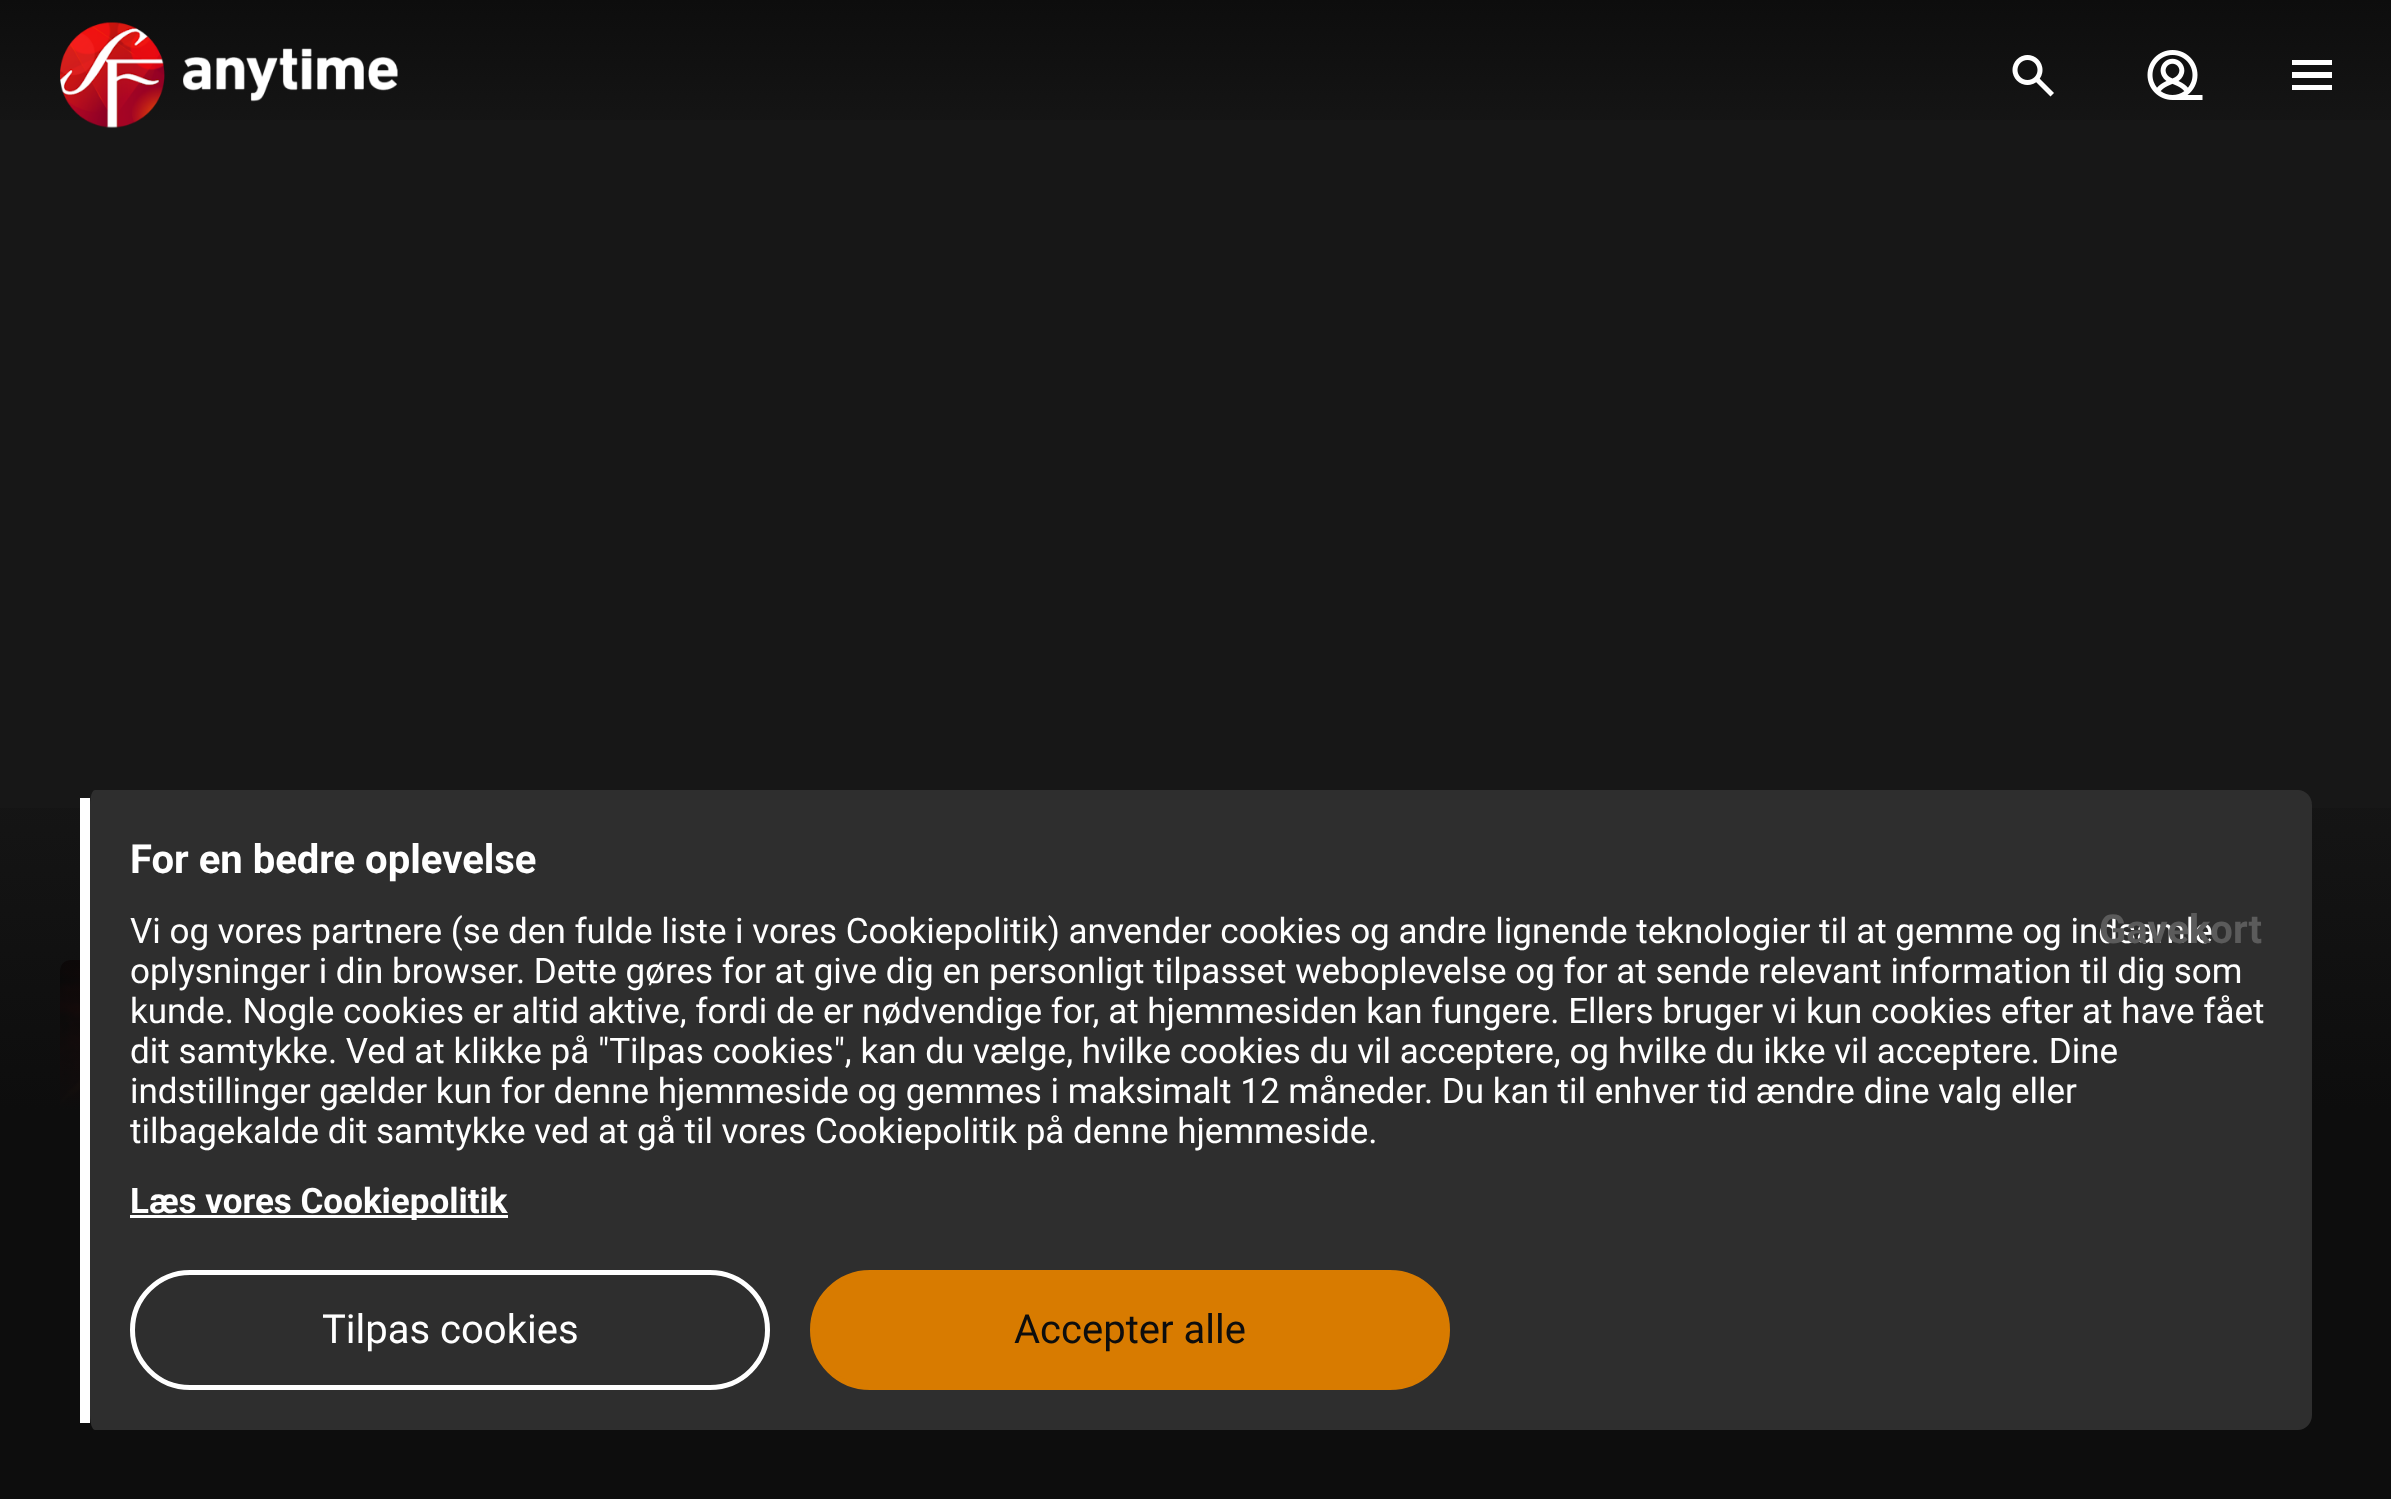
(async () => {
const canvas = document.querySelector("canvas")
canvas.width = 2391
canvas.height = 1499
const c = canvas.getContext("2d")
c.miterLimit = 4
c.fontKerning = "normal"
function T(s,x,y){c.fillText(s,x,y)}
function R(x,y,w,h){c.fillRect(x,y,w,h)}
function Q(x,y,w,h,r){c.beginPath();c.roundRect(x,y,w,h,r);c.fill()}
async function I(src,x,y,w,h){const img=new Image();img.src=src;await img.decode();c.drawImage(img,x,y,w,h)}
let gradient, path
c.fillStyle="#171717"
R(0,0,2391,1499)
gradient = c.createLinearGradient(1196,160,1196,0)
gradient.addColorStop(0,"#171717")
gradient.addColorStop(1,"#0d0d0d")
c.fillStyle = gradient
R(0,0,2391,120)
await I("1.png",60,22,338,106)
await I("2.png",2012,55,42,42)
await I("3.png",2147,50,56,50)
c.fillStyle="#fff"
R(2292,85,40,5)
R(2292,60,40,5)
R(2292,72,40,6)
c.fillStyle="#242424"
Q(60,960,538,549,10)
await I("4.png",60,960,20,148)
gradient = c.createLinearGradient(1196,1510,1196,710)
gradient.addColorStop(0,"#0d0d0d")
gradient.addColorStop(.5,"#0d0d0d")
gradient.addColorStop(1,"#0d0d0d00")
c.fillStyle = gradient
R(0,808,2391,691)
c.fillStyle="#2e2e2e"
path = new Path2D("M95 790h2203c8 0 14 7 14 15v610c0 8-6 15-14 15h-2203c-3 0-5-7-5-15v-610c0-8 2-15 5-15z")
c.fill(path)
c.fillStyle="#fff"
R(80,798,10,625)
c.font="bold 40px Roboto"
T("For en bedre oplevelse",130,873)
c.font="35px Roboto"
T("Vi og vores partnere (se den fulde liste i vores Cookiepolitik) anvender cookies og andre lignende teknologier til at gemme og indsamle",130,943)
T("oplysninger i din browser. Dette gøres for at give dig en personligt tilpasset weboplevelse og for at sende relevant information til dig som",130,983)
T("kunde. Nogle cookies er altid aktive, fordi de er nødvendige for, at hjemmesiden kan fungere. Ellers bruger vi kun cookies efter at have fået",130,1023)
T("dit samtykke. Ved at klikke på \"Tilpas cookies\", kan du vælge, hvilke cookies du vil acceptere, og hvilke du ikke vil acceptere. Dine",130,1063)
T("indstillinger gælder kun for denne hjemmeside og gemmes i maksimalt 12 måneder. Du kan til enhver tid ændre dine valg eller",130,1103)
T("tilbagekalde dit samtykke ved at gå til vores Cookiepolitik på denne hjemmeside.",130,1143)
R(130,1215,378,3)
c.font="bold 35px Roboto"
T("Læs vores Cookiepolitik",130,1213)
c.beginPath()
c.roundRect(132.5,1272.5,635,115,57.5)
c.strokeStyle="#fff"
c.lineWidth=5
c.stroke()
c.save()
c.beginPath()
c.rect(323,1300,255,60)
c.clip()
c.font="40px Roboto"
T("Tilpas cookies",322,1343)
c.restore()
c.fillStyle="#d87b00"
c.beginPath()
c.roundRect(812.5,1272.5,635,115,57.5)
c.fill()
c.strokeStyle="#d87b00"
c.stroke()
c.font="40px Roboto"
c.fillStyle="#0d0d0d"
T("Accepter alle",1014,1343)
c.font="bold 40px Roboto"
c.fillStyle="#5b5b5b"
T("Gavekort",2099,943)
})()
